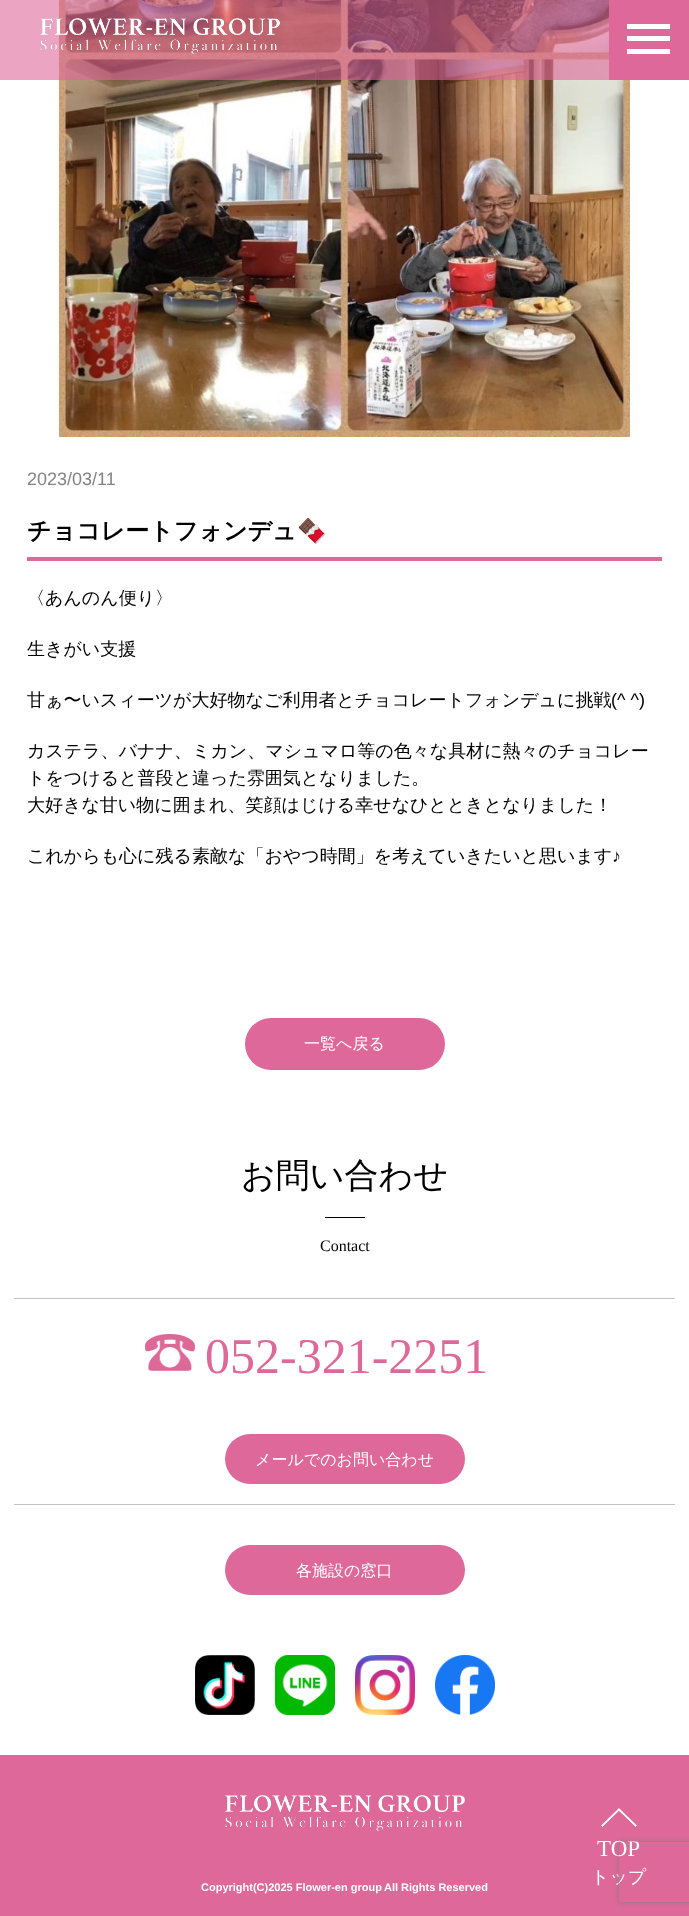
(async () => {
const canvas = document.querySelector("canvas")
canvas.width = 689
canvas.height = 1916
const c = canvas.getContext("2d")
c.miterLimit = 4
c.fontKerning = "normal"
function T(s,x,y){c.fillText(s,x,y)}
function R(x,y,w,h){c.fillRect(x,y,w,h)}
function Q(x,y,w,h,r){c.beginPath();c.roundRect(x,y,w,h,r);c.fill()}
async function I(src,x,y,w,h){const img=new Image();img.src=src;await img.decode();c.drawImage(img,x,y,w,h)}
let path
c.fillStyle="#fff"
R(0,0,689,1916)
await I("2.png",59,0,571,437)
c.fillStyle="#dd689999"
R(0,0,609,80)
await I("1.png",40,18,240,36)
c.fillStyle="#dd6899"
R(609,0,80,80)
c.fillStyle="#fff"
R(627,24,43,5)
R(627,36,43,5)
R(627,49,43,5)
c.font="18px Liberation Sans"
c.fillStyle="#838383"
T("2023/03/11",27,485)
c.fillStyle="#dd6899"
R(27,557,635,4)
c.font="bold 24px WenQuanYi Zen Hei"
c.fillStyle="#000"
T("チョコレートフォンデュ",27,539)
c.font="bold 24px Noto Color Emoji"
T("🍫",297,539)
c.font="500 18px WenQuanYi Zen Hei"
T("〈あんのん便り〉",27,604)
T("生きがい支援",27,655)
T("甘ぁ〜いスィーツが大好物なご利用者とチョコレートフォンデュに挑戦",27,706)
c.font="18px Liberation Sans"
T("(^ ^)",611,706)
c.font="500 18px WenQuanYi Zen Hei"
T("カステラ、バナナ、ミカン、マシュマロ等の色々な具材に熱々のチョコレー",27,757)
T("トをつけると普段と違った雰囲気となりました。",27,784)
T("大好きな甘い物に囲まれ、笑顔はじける幸せなひとときとなりました！",27,811)
T("これからも心に残る素敵な「おやつ時間」を考えていきたいと思います",27,862)
c.font="18px Liberation Sans"
T("♪",612,862)
c.fillStyle="#dd6899"
Q(245,1018,200,52,26)
c.font="500 16px WenQuanYi Zen Hei"
c.fillStyle="#fff"
T("一覧へ戻る",304,1049)
c.font="500 34px WenQuanYi Zen Hei"
c.fillStyle="#000"
T("お問い合わせ",241,1187)
R(325,1217,40,1)
c.font="16px Liberation Serif"
T("Contact",320,1251)
c.fillStyle="#c2c2c2"
R(14,1298,661,1)
R(14,1504,661,1)
await I("3.png",145,1334,50,37)
c.font="50px Liberation Serif"
c.fillStyle="#dd6899"
T("052-321-2251",205,1373)
Q(225,1434,240,50,25)
c.font="500 16px WenQuanYi Zen Hei"
c.fillStyle="#fff"
T("メールでのお問い合わせ",255,1465)
c.fillStyle="#dd6899"
Q(225,1545,240,50,25)
c.fillStyle="#fff"
T("各施設の窓口",296,1576)
await I("4.png",195,1655,60,60)
await I("5.png",275,1655,60,60)
await I("6.png",355,1655,60,60)
await I("7.png",435,1655,60,60)
c.fillStyle="#dd6899"
R(0,1755,689,161)
await I("8.png",601,1808,36,19)
c.font="23px Liberation Serif"
c.fillStyle="#fff"
T("TOP",597,1856)
c.font="500 18px WenQuanYi Zen Hei"
T("トップ",591,1883)
c.save()
path = new Path2D("M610 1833h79v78h-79zm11 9h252c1 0 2 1 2 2v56c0 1-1 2-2 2h-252c-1 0-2-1-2-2v-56c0-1 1-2 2-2z")
c.clip(path,"evenodd")
c.fillStyle="#808080"
c.filter="blur(2.5px)"
c.beginPath()
c.roundRect(619,1842,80,60,2)
c.fill()
c.filter="none"
c.restore()
await I("9.png",225,1795,240,36)
c.font="bold 11px Liberation Sans"
T("Copyright(C)2025 Flower-en group",201,1891)
T("All Rights Reserved",384,1891)
})()
